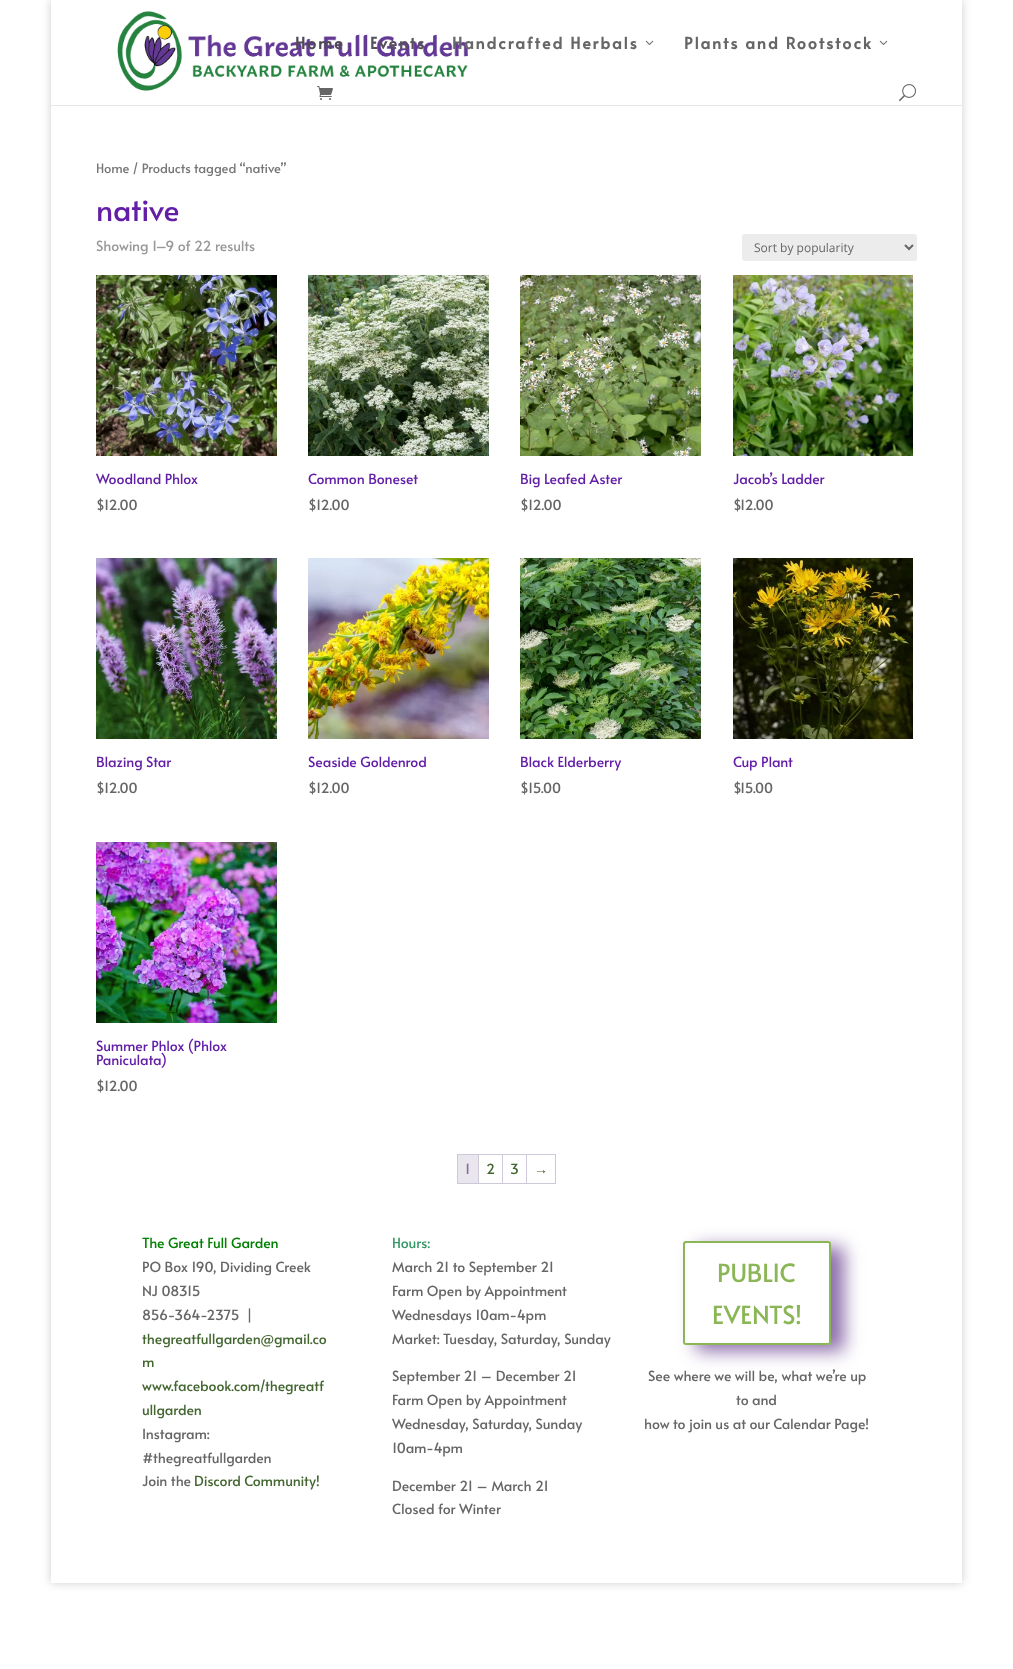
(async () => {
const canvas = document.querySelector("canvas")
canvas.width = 1013
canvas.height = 1669
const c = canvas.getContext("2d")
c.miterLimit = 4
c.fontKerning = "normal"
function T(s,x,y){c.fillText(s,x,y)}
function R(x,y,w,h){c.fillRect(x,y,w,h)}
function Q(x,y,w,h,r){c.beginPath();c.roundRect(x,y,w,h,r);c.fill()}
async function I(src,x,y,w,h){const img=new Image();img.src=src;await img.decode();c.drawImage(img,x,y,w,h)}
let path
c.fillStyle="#fff"
R(0,0,1013,1669)
c.save()
path = new Path2D("M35 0h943v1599h-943zm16 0h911v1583h-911z")
c.clip(path,"evenodd")
c.fillStyle="#00000033"
c.filter="blur(5px)"
c.beginPath()
c.rect(51,0,911,1583)
c.fill()
c.filter="none"
c.restore()
c.fillStyle="#e6e6e6"
R(51,105,911,1)
await I("1.png",117,11,351,80)
c.letterSpacing="2px"
c.font="bold 16px Alata"
c.fillStyle="#504a57"
T("Home",295,49)
c.fillStyle="#55505a"
T("Events",370,49)
c.fillStyle="#666"
T("Handcrafted Herbals",452,49)
await I("2.png",645,40,9,5)
T("Plants and Rootstock",684,49)
await I("2.png",879,40,9,5)
await I("3.png",317,86,16,14)
await I("4.png",899,84,17,18)
c.letterSpacing="0px"
c.font="12.9px Alata"
c.fillStyle="#767676"
T("Home / Products tagged “native”",96,173)
c.font="30px Alata"
c.fillStyle="#631ea8"
T("native",96,221)
c.font="14px Alata"
c.fillStyle="#999"
T("Showing 1–9 of 22 results",96,251)
c.fillStyle="#ececec"
Q(742,234,175,27,3)
path = new Path2D("M905 245l4 4l4-4")
c.strokeStyle="#666"
c.lineWidth=2
c.stroke(path)
c.font="12px Open Sans"
c.fillStyle="#666"
T("Sort by popularity",754,252)
await I("5.png",96,275,181,181)
c.font="14px Alata"
c.fillStyle="#631ea8"
T("Woodland Phlox",96,484)
c.fillStyle="#666"
T("$",96,510)
T("12.00",104,510)
await I("6.png",308,275,181,181)
c.fillStyle="#631ea8"
T("Common Boneset",308,484)
c.fillStyle="#666"
T("$",308,510)
T("12.00",316,510)
await I("7.png",520,275,181,181)
c.fillStyle="#631ea8"
T("Big Leafed Aster",520,484)
c.fillStyle="#666"
T("$",520,510)
T("12.00",528,510)
await I("8.png",733,275,180,181)
c.fillStyle="#631ea8"
T("Jacob’s Ladder",733,484)
c.fillStyle="#666"
T("$",733,510)
T("12.00",740,510)
await I("9.png",96,558,181,181)
c.fillStyle="#631ea8"
T("Blazing Star",96,767)
c.fillStyle="#666"
T("$",96,793)
T("12.00",104,793)
await I("10.png",308,558,181,181)
c.fillStyle="#631ea8"
T("Seaside Goldenrod",308,767)
c.fillStyle="#666"
T("$",308,793)
T("12.00",316,793)
await I("11.png",520,558,181,181)
c.fillStyle="#631ea8"
T("Black Elderberry",520,767)
c.fillStyle="#666"
T("$",520,793)
T("15.00",528,793)
await I("12.png",733,558,180,181)
c.fillStyle="#631ea8"
T("Cup Plant",733,767)
c.fillStyle="#666"
T("$",733,793)
T("15.00",740,793)
await I("13.png",96,842,181,181)
c.fillStyle="#631ea8"
T("Summer Phlox (Phlox",96,1051)
T("Paniculata)",96,1065)
c.fillStyle="#666"
T("$",96,1091)
T("12.00",104,1091)
c.fillStyle="#cfc8d8"
R(457,1154,99,1)
R(457,1183,99,1)
R(457,1154,1,30)
R(478,1155,1,28)
c.fillStyle="#e9e6ed"
R(458,1155,20,28)
c.fillStyle="#816f98"
T("1",465,1174)
c.fillStyle="#cfc8d8"
R(502,1155,1,28)
c.fillStyle="#446631"
T("2",486,1174)
c.fillStyle="#cfc8d8"
R(526,1155,1,28)
c.fillStyle="#446631"
T("3",510,1174)
c.fillStyle="#cfc8d8"
R(555,1155,1,28)
c.font="14px Liberation Sans"
c.fillStyle="#446631"
T("→",534,1174)
c.font="14px Alata"
c.fillStyle="#008000"
T("The Great Full Garden",142,1248)
c.fillStyle="#666"
T("PO Box 190, Dividing Creek",142,1272)
T("NJ 08315",142,1296)
T("856-364-2375  |",142,1320)
c.fillStyle="#446631"
T("thegreatfullgarden@gmail.co",142,1344)
T("m",142,1367)
T("www.facebook.com/thegreatf",142,1391)
T("ullgarden",142,1415)
c.fillStyle="#666"
T("Instagram:",142,1439)
T("#thegreatfullgarden",142,1463)
T("Join the",142,1486)
c.fillStyle="#446631"
T("Discord Community!",194,1486)
c.fillStyle="#396"
T("Hours:",392,1248)
c.fillStyle="#666"
T("March 21 to September 21",392,1272)
T("Farm Open by Appointment",392,1296)
T("Wednesdays 10am-4pm",392,1320)
T("Market: Tuesday, Saturday, Sunday",392,1344)
T("September 21 – December 21",392,1381)
T("Farm Open by Appointment",392,1405)
T("Wednesday, Saturday, Sunday",392,1429)
T("10am-4pm",392,1453)
T("December 21 – March 21",392,1491)
T("Closed for Winter",392,1514)
c.save()
path = new Path2D("M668 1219h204v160h-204zm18 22h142c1.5 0 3 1.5 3 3v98c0 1.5-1.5 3-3 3h-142c-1.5 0-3-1.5-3-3v-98c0-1.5 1.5-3 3-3z")
c.clip(path,"evenodd")
c.fillStyle="#8b6ba9"
c.filter="blur(9px)"
c.beginPath()
c.roundRect(696,1247,148,104,3)
c.fill()
c.filter="none"
c.restore()
c.beginPath()
c.roundRect(684,1242,146,102,2)
c.strokeStyle="#8ab655"
c.stroke()
c.font="25px Alata"
c.fillStyle="#8ab655"
T("PUBLIC",717,1282)
T("EVENTS!",712,1324)
c.font="14px Alata"
c.fillStyle="#666"
T("See where we will be, what we’re up",648,1381)
T("to and",736,1405)
T("how to join us at our Calendar Page!",644,1429)
})()
